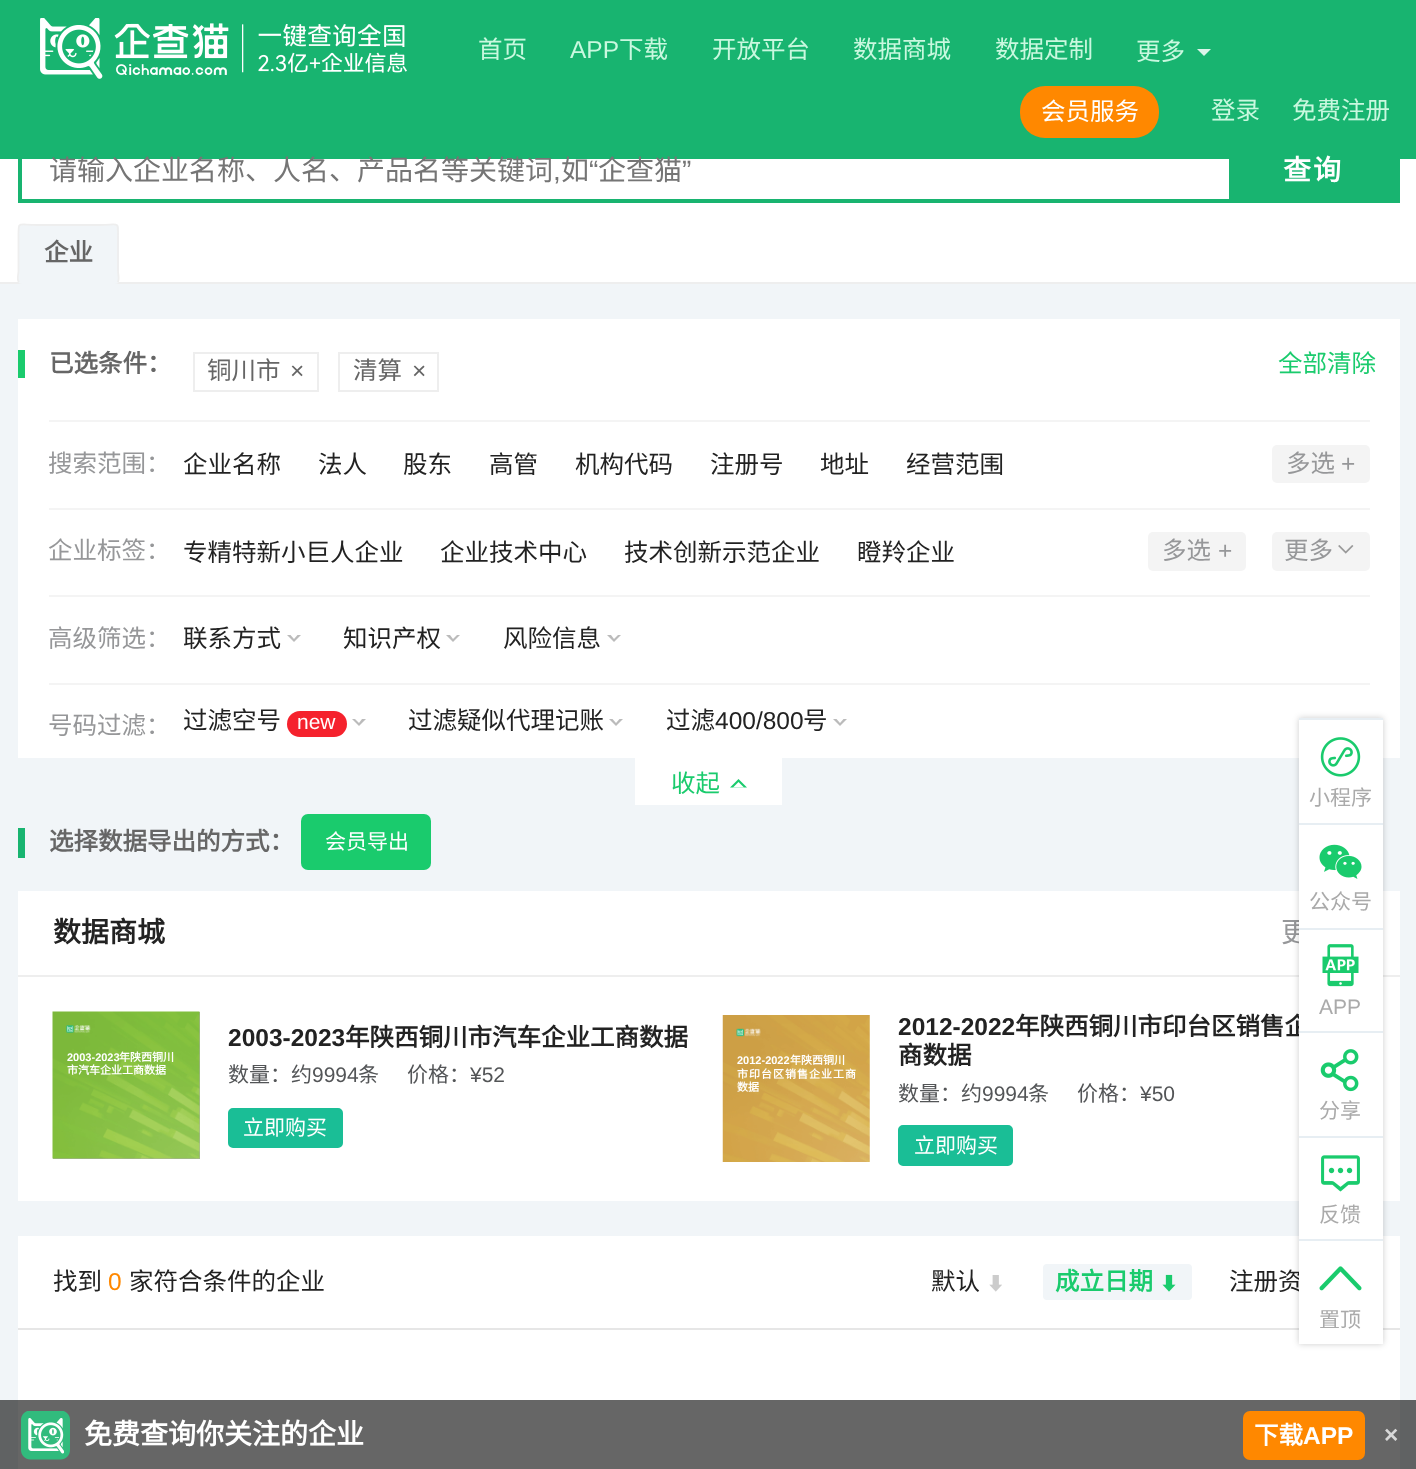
(async () => {
const canvas = document.querySelector("canvas")
canvas.width = 1416
canvas.height = 1469
const c = canvas.getContext("2d")
c.miterLimit = 4
c.fontKerning = "normal"
function T(s,x,y){c.fillText(s,x,y)}
function R(x,y,w,h){c.fillRect(x,y,w,h)}
function Q(x,y,w,h,r){c.beginPath();c.roundRect(x,y,w,h,r);c.fill()}
async function I(src,x,y,w,h){const img=new Image();img.src=src;await img.decode();c.drawImage(img,x,y,w,h)}
let path
c.fillStyle="#f1f5f8"
R(0,0,1416,1469)
c.fillStyle="#606263"
R(0,1400,1416,69)
c.fillStyle="#18b470"
R(0,0,1416,159)
await I("1.png",40,18,367,61)
c.font="24.5px Noto Sans CJK SC"
c.fillStyle="#c9f8df"
T("首页",478,58)
c.font="24.5px Liberation Sans"
T("APP",570,58)
c.font="24.5px Noto Sans CJK SC"
T("下载",619,58)
T("开放平台",712,58)
T("数据商城",853,58)
T("数据定制",995,58)
T("更多",1136,60)
c.fillStyle="#dcf4ea"
path = new Path2D("M1197 49h14l-7 7z")
c.fill(path)
c.fillStyle="#f80"
Q(1020,86,139,52,25)
c.fillStyle="#fff"
T("会员服务",1041,120)
c.fillStyle="#c9f8df"
T("登录",1211,119)
T("免费注册",1292,119)
c.fillStyle="#fff"
R(0,159,1416,123)
c.fillStyle="#eee"
R(0,282,1416,2)
c.strokeStyle="#18b470"
c.lineWidth=4
c.strokeRect(20,142,1378,59)
c.font="28px Noto Sans CJK SC"
c.fillStyle="#757575"
T("请输入企业名称、人名、产品名等关键词",49,180)
T("如",561,180)
c.font="28px Liberation Sans"
T("“",589,180)
c.font="28px Noto Sans CJK SC"
T("企查猫",598,180)
c.font="28px Liberation Sans"
T("”",682,180)
T(",",553,180)
c.fillStyle="#18b470"
R(1229,159,167,40)
c.letterSpacing="2px"
c.font="bold 28px Noto Sans CJK SC"
c.fillStyle="#fff"
T("查询",1283,180)
c.fillStyle="#f1f5f8"
Q(18,224,101,60,4)
path = new Path2D("M19 282c-2.5-2.5-.5-7-.5-11v-35c0-15.5-1-11 18.5-11h63c19 0 18-4.5 18 11v35c0 4 2 8.5-.5 11")
c.strokeStyle="#eee"
c.lineWidth=1.8
c.stroke(path)
c.letterSpacing="0px"
c.font="bold 24.5px Noto Sans CJK SC"
c.fillStyle="#666"
T("企业",44,261)
c.fillStyle="#fff"
R(18,319,1382,439)
c.fillStyle="#1acb6d"
R(18,350,7,28)
c.fillStyle="#666"
T("已选条件：",49,372)
c.lineWidth=2
c.strokeRect(194,353,124,38)
c.font="24.5px Noto Sans CJK SC"
T("铜川市",207,379)
c.font="24.5px Liberation Sans"
T("×",290,379)
c.strokeRect(339,353,99,38)
c.font="24.5px Noto Sans CJK SC"
T("清算",353,379)
c.font="24.5px Liberation Sans"
T("×",412,379)
c.font="24.5px Noto Sans CJK SC"
c.fillStyle="#1acb6d"
T("全部清除",1278,372)
c.fillStyle="#f4f4f4"
R(49,420,1321,2)
c.fillStyle="#969799"
T("搜索范围：",48,472)
c.fillStyle="#222"
T("企业名称",183,473)
T("法人",318,473)
T("股东",403,473)
T("高管",489,473)
T("机构代码",575,473)
T("注册号",710,473)
T("地址",820,473)
T("经营范围",906,473)
c.fillStyle="#f4f4f4"
Q(1272,445,98,38,5)
c.fillStyle="#969799"
T("多选",1286,472)
c.font="24.5px Liberation Sans"
T("+",1341,472)
c.fillStyle="#f4f4f4"
R(49,508,1321,2)
c.font="24.5px Noto Sans CJK SC"
c.fillStyle="#969799"
T("企业标签：",48,559)
c.fillStyle="#222"
T("专精特新小巨人企业",183,561)
T("企业技术中心",440,561)
T("技术创新示范企业",624,561)
T("瞪羚企业",857,561)
c.fillStyle="#f4f4f4"
Q(1148,532,98,39,5)
c.fillStyle="#969799"
T("多选",1162,559)
c.font="24.5px Liberation Sans"
T("+",1218,559)
c.fillStyle="#f4f4f4"
Q(1272,532,98,39,5)
c.font="24.5px Noto Sans CJK SC"
c.fillStyle="#969799"
T("更多",1284,559)
await I("2.png",1338,545,16,9)
c.fillStyle="#f4f4f4"
R(49,595,1321,2)
c.fillStyle="#969799"
T("高级筛选：",48,647)
c.fillStyle="#222"
T("联系方式",183,647)
c.fillStyle="#bbb"
path = new Path2D("M287 635h14l-7 7z")
c.fill(path)
c.fillStyle="#fff"
path = new Path2D("M290.5 635h7l-3.5 4z")
c.fill(path)
c.fillStyle="#222"
T("知识产权",343,647)
c.fillStyle="#bbb"
path = new Path2D("M446 635h14l-7 7z")
c.fill(path)
c.fillStyle="#fff"
path = new Path2D("M450 635h7l-4 4z")
c.fill(path)
c.fillStyle="#222"
T("风险信息",503,647)
c.fillStyle="#bbb"
path = new Path2D("M607 635h14l-7 7z")
c.fill(path)
c.fillStyle="#fff"
path = new Path2D("M611 635h7l-4 4z")
c.fill(path)
c.fillStyle="#f4f4f4"
R(49,683,1321,2)
c.fillStyle="#969799"
T("号码过滤：",48,734)
c.fillStyle="#222"
T("过滤空号",183,729)
c.fillStyle="#f5222d"
Q(287,711,60,26,13)
c.font="21px Liberation Sans"
c.fillStyle="#fff"
T("new",297,729)
c.fillStyle="#bbb"
path = new Path2D("M352 719h14l-7 7z")
c.fill(path)
c.fillStyle="#fff"
path = new Path2D("M355 719h7l-3 4z")
c.fill(path)
c.font="24.5px Noto Sans CJK SC"
c.fillStyle="#222"
T("过滤疑似代理记账",408,729)
c.fillStyle="#bbb"
path = new Path2D("M609 719h14l-7 7z")
c.fill(path)
c.fillStyle="#fff"
path = new Path2D("M612.5 719h7l-3.5 4z")
c.fill(path)
c.fillStyle="#222"
T("过滤",666,729)
c.font="24.5px Liberation Sans"
T("400/800",715,729)
c.font="24.5px Noto Sans CJK SC"
T("号",803,729)
c.fillStyle="#bbb"
path = new Path2D("M833 719h14l-7 7z")
c.fill(path)
c.fillStyle="#fff"
path = new Path2D("M836.5 719h7l-3.5 4z")
c.fill(path)
R(635,758,147,47)
c.fillStyle="#1acb6d"
T("收起",671,792)
path = new Path2D("M747 787.5h-17l8.5-8.5z")
c.fill(path)
c.fillStyle="#fff"
path = new Path2D("M744 787.5h-11l5.5-5.5z")
c.fill(path)
c.fillStyle="#18b470"
R(18,828,7,30)
c.font="bold 24.5px Noto Sans CJK SC"
c.fillStyle="#666"
T("选择数据导出的方式：",49,850)
c.fillStyle="#1acb6d"
Q(301,814,130,56,7)
c.font="21px Noto Sans CJK SC"
c.fillStyle="#fff"
T("会员导出",325,849)
R(18,891,1382,310)
c.fillStyle="#eee"
R(18,975,1382,2)
c.font="bold 28px Noto Sans CJK SC"
c.fillStyle="#222"
T("数据商城",53,942)
c.font="28px Noto Sans CJK SC"
c.fillStyle="#969799"
T("更",1281,942)
c.fillStyle="#aaa"
R(53,1012,147,147)
await I("3.png",52,1011,148,148)
c.font="bold 11px Liberation Sans"
c.fillStyle="#fff"
T("2003-2023",67,1061)
c.font="bold 11px Noto Sans CJK SC"
T("年陕西铜川",119,1061)
T("市汽车企业工商数据",67,1074)
c.font="bold 24.5px Liberation Sans"
c.fillStyle="#222"
T("2003-2023",228,1046)
c.font="bold 24.5px Noto Sans CJK SC"
T("年陕西铜川市汽车企业工商数据",345,1046)
c.font="21px Noto Sans CJK SC"
c.fillStyle="#535557"
T("数量：约",228,1082)
c.font="21px Liberation Sans"
T("9994",312,1082)
c.font="21px Noto Sans CJK SC"
T("条",358,1082)
T("价格：",407,1082)
c.font="21px Liberation Sans"
T("¥52",470,1082)
c.fillStyle="#1abe96"
c.beginPath()
c.roundRect(229,1109,113,38,4)
c.fill()
c.strokeStyle="#1abe96"
c.stroke()
c.font="21px Noto Sans CJK SC"
c.fillStyle="#fff"
T("立即购买",243,1135)
await I("4.png",722,1015,148,147)
c.font="bold 11px Liberation Sans"
T("2012-2022",737,1064)
c.font="bold 11px Noto Sans CJK SC"
T("年陕西铜川",790,1064)
c.letterSpacing="1px"
T("市印台区销售企业工商",737,1078)
c.letterSpacing="0px"
T("数据",737,1091)
c.font="bold 24.5px Liberation Sans"
c.fillStyle="#222"
T("2012-2022",898,1035)
c.font="bold 24.5px Noto Sans CJK SC"
T("年陕西铜川市印台区销售企",1015,1035)
T("商数据",898,1064)
c.font="21px Noto Sans CJK SC"
c.fillStyle="#535557"
T("数量：约",898,1101)
c.font="21px Liberation Sans"
T("9994",982,1101)
c.font="21px Noto Sans CJK SC"
T("条",1028,1101)
T("价格：",1077,1101)
c.font="21px Liberation Sans"
T("¥50",1140,1101)
c.fillStyle="#1abe96"
c.beginPath()
c.roundRect(899,1126,113,39,4)
c.fill()
c.stroke()
c.font="21px Noto Sans CJK SC"
c.fillStyle="#fff"
T("立即购买",914,1153)
R(18,1236,1382,164)
c.fillStyle="#666"
R(18,1400,1382,69)
c.fillStyle="#e6e6e6"
R(18,1328,1382,2)
c.font="24.5px Noto Sans CJK SC"
c.fillStyle="#222"
T("找到",53,1290)
c.font="24.5px Liberation Sans"
c.fillStyle="#f80"
T("0",108,1290)
c.font="24.5px Noto Sans CJK SC"
c.fillStyle="#222"
T("家符合条件的企业",129,1290)
T("默认",931,1290)
await I("5.png",989,1275,13,17)
c.fillStyle="#f1f5f8"
Q(1043,1264,149,36,4)
c.font="bold 24.5px Noto Sans CJK SC"
c.fillStyle="#1acb6d"
T("成立日期",1055,1290)
await I("6.png",1162,1274,14,18)
c.font="24.5px Noto Sans CJK SC"
c.fillStyle="#222"
T("注册资",1229,1290)
c.fillStyle="#00000033"
c.filter="blur(3px)"
c.beginPath()
c.rect(1299,718,84,626)
c.fill()
c.filter="none"
c.fillStyle="#fff"
R(1299,720,84,624)
c.fillStyle="#e7eef3"
R(1299,718,84,2)
await I("7.png",1320,737,41,40)
c.font="21px Noto Sans CJK SC"
c.fillStyle="#aaa"
T("小程序",1309,805)
c.fillStyle="#e7eef3"
R(1299,823,84,2)
await I("8.png",1319,844,43,35)
c.fillStyle="#aaa"
T("公众号",1309,909)
c.fillStyle="#e7eef3"
R(1299,928,84,2)
await I("9.png",1322,944,37,43)
c.font="21px Liberation Sans"
c.fillStyle="#aaa"
T("APP",1319,1014)
c.fillStyle="#e7eef3"
R(1299,1031,84,2)
await I("10.png",1320,1049,39,43)
c.font="21px Noto Sans CJK SC"
c.fillStyle="#aaa"
T("分享",1319,1118)
c.fillStyle="#e7eef3"
R(1299,1136,84,2)
await I("11.png",1321,1155,39,37)
c.fillStyle="#aaa"
T("反馈",1319,1222)
c.fillStyle="#e7eef3"
R(1299,1239,84,2)
await I("12.png",1319,1266,43,25)
c.fillStyle="#aaa"
T("置顶",1319,1327)
await I("13.png",21,1411,49,49)
c.font="bold 28px Noto Sans CJK SC"
c.fillStyle="#fff"
T("免费查询你关注的企业",84,1444)
c.fillStyle="#f80"
Q(1243,1411,122,49,7)
c.font="bold 24.5px Noto Sans CJK SC"
c.fillStyle="#fff"
T("下载",1254,1444)
c.font="bold 24.5px Liberation Sans"
T("APP",1303,1444)
c.fillStyle="#d9d9d9"
T("×",1384,1443)
})()
